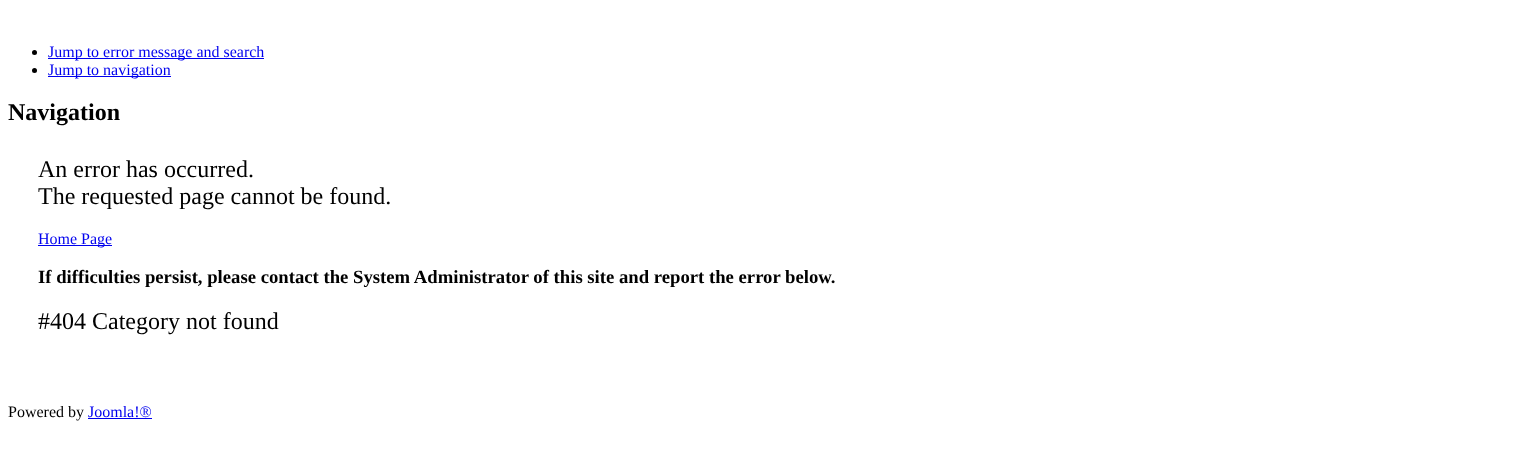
(async () => {
const canvas = document.querySelector("canvas")
canvas.width = 1527
canvas.height = 474
const c = canvas.getContext("2d")
c.miterLimit = 4
c.fontKerning = "normal"
function T(s,x,y){c.fillText(s,x,y)}
function R(x,y,w,h){c.fillRect(x,y,w,h)}
c.fillStyle="#fff"
R(0,0,1527,474)
c.fillStyle="#000"
c.beginPath()
c.arc(34.5,52.5,2.5,0,7)
c.fill()
c.fillStyle="#00e"
R(48,58,216,1)
c.font="16px Liberation Serif"
T("Jump to error message and search",48,57)
c.fillStyle="#000"
c.beginPath()
c.arc(34.5,70.5,2.5,0,7)
c.fill()
c.fillStyle="#00e"
R(48,76,123,1)
T("Jump to navigation",48,75)
c.font="bold 24px Liberation Serif"
c.fillStyle="#000"
T("Navigation",8,120)
c.font="24px Liberation Serif"
T("An error has occurred.",38,177)
T("The requested page cannot be found.",38,204)
c.fillStyle="#00e"
R(38,245,74,1)
c.font="16px Liberation Serif"
T("Home Page",38,244)
c.font="bold 18.7px Liberation Serif"
c.fillStyle="#000"
T("If difficulties persist, please contact the System Administrator of this site and report the error below.",38,283)
c.font="24px Liberation Serif"
T("#404 Category not found",38,329)
c.font="16px Liberation Serif"
T("Powered by",8,417)
c.fillStyle="#00e"
T("Joomla!®",88,417)
R(88,418,64,1)
})()
